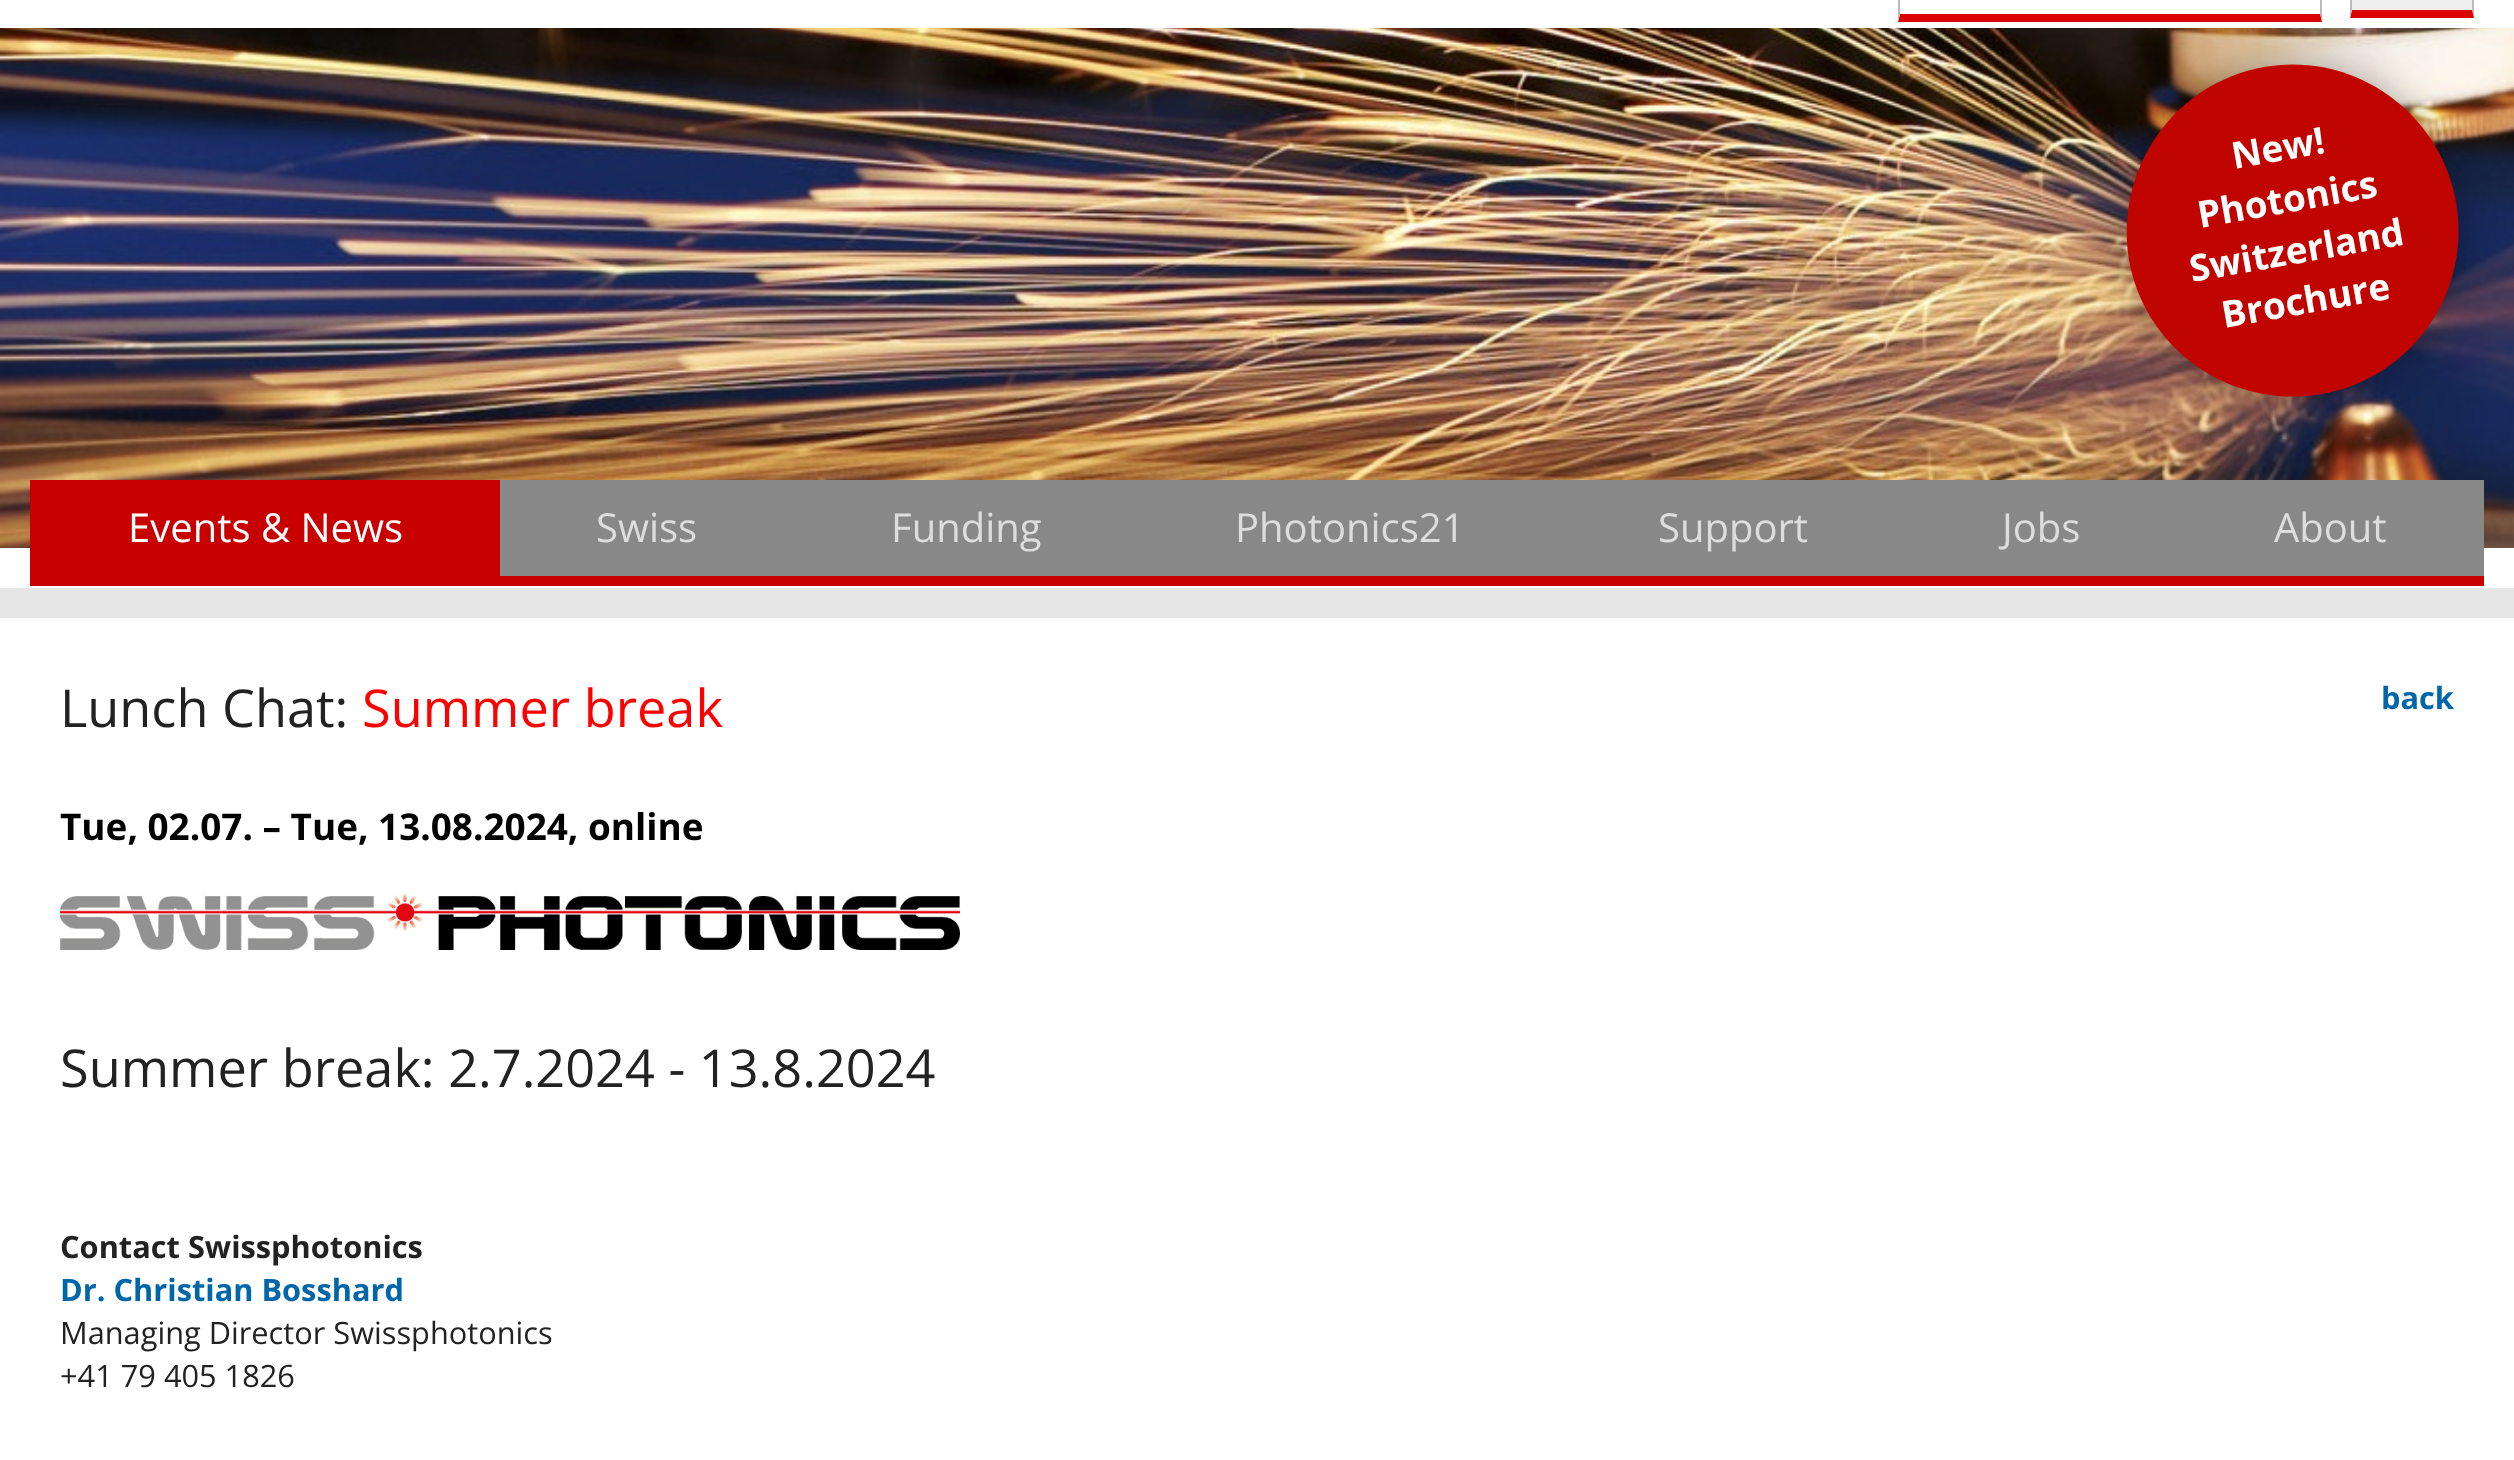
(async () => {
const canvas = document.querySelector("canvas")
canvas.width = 2514
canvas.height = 1460
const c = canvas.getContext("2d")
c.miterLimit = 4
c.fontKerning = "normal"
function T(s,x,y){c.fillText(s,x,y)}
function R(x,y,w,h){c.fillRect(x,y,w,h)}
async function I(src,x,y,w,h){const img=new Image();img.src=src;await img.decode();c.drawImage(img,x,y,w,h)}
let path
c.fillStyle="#e6e6e6"
R(0,0,2514,1460)
c.fillStyle="#fff"
R(0,0,2514,28)
c.fillStyle="#bbb"
path = new Path2D("M2322-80v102l-2-8v-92z")
c.fill(path)
c.fillStyle="#d00"
path = new Path2D("M2322 22h-424l2-8h420z")
c.fill(path)
c.fillStyle="#bbb"
path = new Path2D("M1898 22v-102l2 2v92z")
c.fill(path)
c.fillStyle="#efefef"
R(2352,0,120,10)
c.fillStyle="#bbb"
path = new Path2D("M2474-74v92l-2-8v-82z")
c.fill(path)
c.fillStyle="#d00"
path = new Path2D("M2474 18h-124l2-8h120z")
c.fill(path)
c.fillStyle="#bbb"
path = new Path2D("M2350 18v-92l2 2v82z")
c.fill(path)
c.fillStyle="#fff"
R(0,548,2514,40)
await I("1.png",0,28,2514,520)
c.fillStyle="#0000004d"
c.filter="blur(18.5px)"
c.beginPath()
c.roundRect(2126,64,332,332,166)
c.fill()
c.filter="none"
c.fillStyle="#c00400"
path = new Path2D("M2264 67c90-16 176 45 192 135c16 90-44 176-134 192c-91 16-177-44-193-134c-15-91 45-177 135-193z")
c.fill(path)
c.font="bold 36.9px Open Sans"
c.fillStyle="#fff"
c.save()
c.translate(2234,169)
c.rotate(-10 * Math.PI / 180)
c.fillText("New!",0,0)
c.restore()
c.save()
c.translate(2200,228)
c.rotate(-10 * Math.PI / 180)
c.fillText("Photonics",0,0)
c.restore()
c.save()
c.translate(2192,282)
c.rotate(-10 * Math.PI / 180)
c.fillText("Switzerland",0,0)
c.restore()
c.save()
c.translate(2224,328)
c.rotate(-10 * Math.PI / 180)
c.fillText("Brochure",0,0)
c.restore()
c.fillStyle="#888"
R(500,480,1984,96)
c.fillStyle="#c80000"
R(30,576,2454,10)
R(30,480,470,96)
c.font="40px Open Sans"
c.fillStyle="#fff"
T("Events & News",128,542)
c.fillStyle="#ddd"
T("Swiss",596,542)
T("Funding",891,542)
T("Photonics21",1235,542)
T("Support",1658,542)
T("Jobs",2002,542)
T("About",2274,542)
c.fillStyle="#fff"
R(0,618,2514,842)
c.font="52.25px Open Sans"
c.fillStyle="#222"
T("Lunch Chat:",60,727)
c.fillStyle="#f00"
T("Summer break",362,727)
c.font="bold 30.75px Open Sans"
c.fillStyle="#06a"
T("back",2381,709)
c.font="bold 36.9px Open Sans"
c.fillStyle="#000"
T("Tue, 02.07. – Tue, 13.08.2024, online",60,840)
await I("2.png",60,892,900,58)
c.font="52.25px Open Sans"
c.fillStyle="#222"
T("Summer break: 2.7.2024 - 13.8.2024",60,1087)
c.font="bold 30.75px Open Sans"
T("Contact Swissphotonics",60,1258)
c.fillStyle="#06a"
T("Dr. Christian Bosshard",60,1301)
c.font="30.75px Open Sans"
c.fillStyle="#222"
T("Managing Director Swissphotonics",60,1344)
T("+41 79 405 1826",60,1387)
})()
